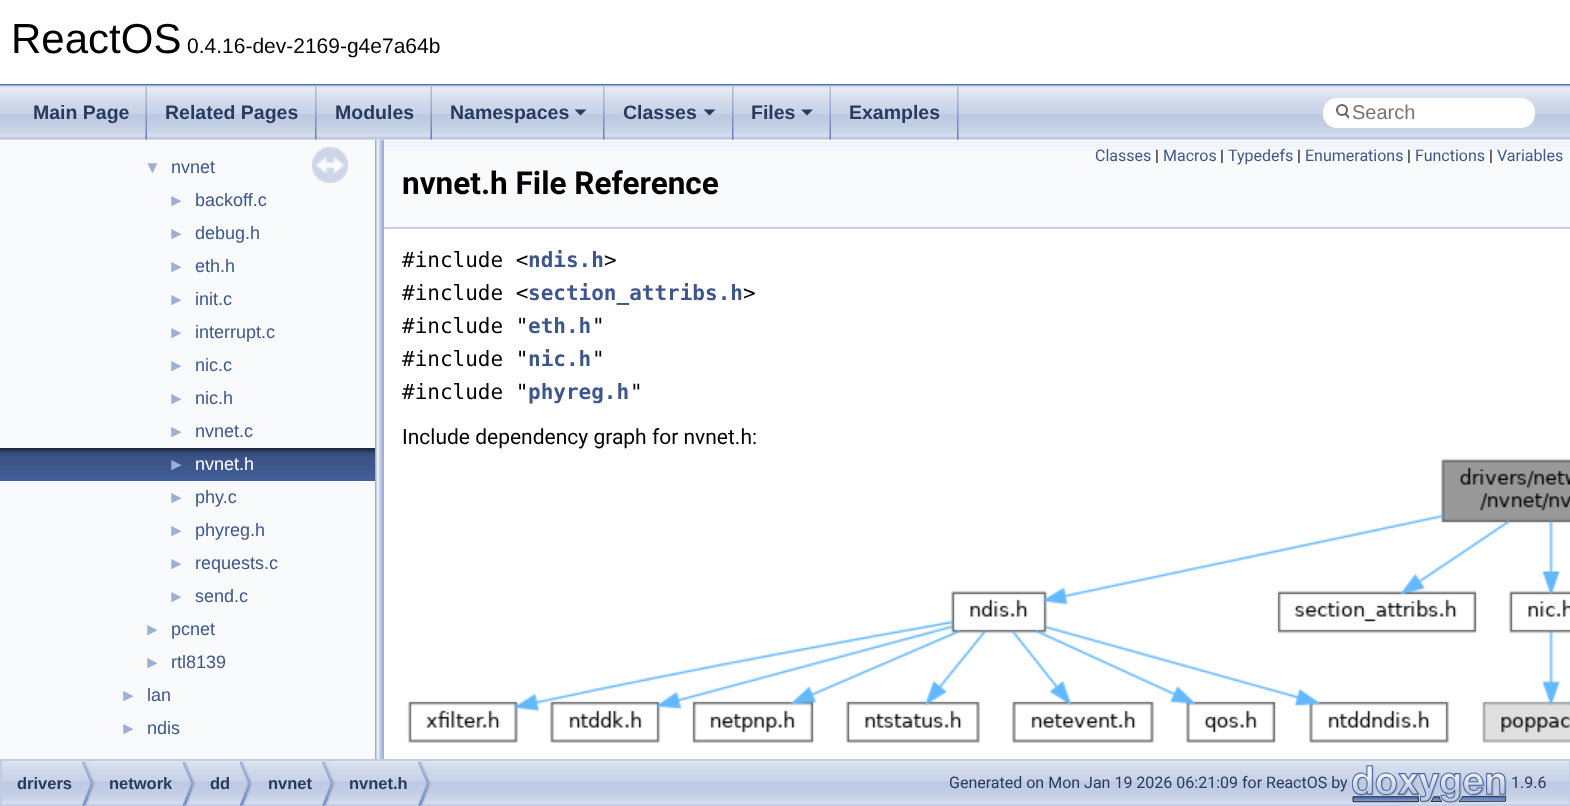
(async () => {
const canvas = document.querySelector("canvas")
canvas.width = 1570
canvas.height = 806
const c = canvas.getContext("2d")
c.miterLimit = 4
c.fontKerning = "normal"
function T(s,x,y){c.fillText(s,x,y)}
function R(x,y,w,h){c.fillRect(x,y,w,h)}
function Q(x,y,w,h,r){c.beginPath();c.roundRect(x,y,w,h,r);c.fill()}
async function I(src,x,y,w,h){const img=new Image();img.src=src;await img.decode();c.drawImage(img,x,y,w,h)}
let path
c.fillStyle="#fff"
R(0,0,1570,806)
c.fillStyle="#5373b4"
R(0,84,1570,2)
c.font="42px Liberation Sans"
c.fillStyle="#000"
T("ReactOS",11,53)
c.font="21px Liberation Sans"
T("0.4.16-dev-2169-g4e7a64b",187,53)
await I("6.png",375,139,9,620)
await I("1.png",0,85,1570,55)
await I("2.png",145,85,2,55)
c.font="bold 19.5px Liberation Sans"
c.fillStyle="#283a5d"
T("Main Page",33,119)
await I("3.png",315,85,2,55)
T("Related Pages",165,119)
await I("2.png",430,85,2,55)
T("Modules",335,119)
await I("3.png",603,85,2,55)
T("Namespaces",450,119)
path = new Path2D("M574.5 109.5h12l-6 6z")
c.fill(path)
await I("3.png",732,85,2,55)
T("Classes",623,119)
path = new Path2D("M703.5 109.5h12l-6 6z")
c.fill(path)
await I("2.png",829,85,2,55)
T("Files",751,119)
path = new Path2D("M801 109.5h12l-6 6z")
c.fill(path)
await I("3.png",957,85,2,55)
T("Examples",849,119)
c.fillStyle="#fff"
Q(1323,98,212,30,14)
c.beginPath()
c.arc(1342,110,5,0,7)
c.strokeStyle="#656565"
c.lineWidth=2.1
c.stroke()
c.save()
c.beginPath()
c.rect(1334,98,15,28)
c.clip()
path = new Path2D("M1345.5 114l4.5 4.5")
c.lineCap="round"
c.stroke(path)
c.restore()
c.font="20px Liberation Sans"
c.fillStyle="#757575"
T("Search",1352,119)
c.fillStyle="#f9fafc"
R(0,140,375,619)
c.font="17px Liberation Sans"
c.fillStyle="#9cafd4"
T("▼",144,173)
c.font="18px Liberation Sans"
c.fillStyle="#3d578c"
T("nvnet",171,173)
c.font="17px Liberation Sans"
c.fillStyle="#9cafd4"
T("►",168,206)
c.font="18px Liberation Sans"
c.fillStyle="#3d578c"
T("backoff.c",195,206)
c.font="17px Liberation Sans"
c.fillStyle="#9cafd4"
T("►",168,239)
c.font="18px Liberation Sans"
c.fillStyle="#3d578c"
T("debug.h",195,239)
c.font="17px Liberation Sans"
c.fillStyle="#9cafd4"
T("►",168,272)
c.font="18px Liberation Sans"
c.fillStyle="#3d578c"
T("eth.h",195,272)
c.font="17px Liberation Sans"
c.fillStyle="#9cafd4"
T("►",168,305)
c.font="18px Liberation Sans"
c.fillStyle="#3d578c"
T("init.c",195,305)
c.font="17px Liberation Sans"
c.fillStyle="#9cafd4"
T("►",168,338)
c.font="18px Liberation Sans"
c.fillStyle="#3d578c"
T("interrupt.c",195,338)
c.font="17px Liberation Sans"
c.fillStyle="#9cafd4"
T("►",168,371)
c.font="18px Liberation Sans"
c.fillStyle="#3d578c"
T("nic.c",195,371)
c.font="17px Liberation Sans"
c.fillStyle="#9cafd4"
T("►",168,404)
c.font="18px Liberation Sans"
c.fillStyle="#3d578c"
T("nic.h",195,404)
c.font="17px Liberation Sans"
c.fillStyle="#9cafd4"
T("►",168,437)
c.font="18px Liberation Sans"
c.fillStyle="#3d578c"
T("nvnet.c",195,437)
await I("4.png",0,448,375,33)
c.font="17px Liberation Sans"
c.fillStyle="#9cafd4"
T("►",168,470)
c.font="18px Liberation Sans"
c.fillStyle="#fff"
T("nvnet.h",195,470)
c.font="17px Liberation Sans"
c.fillStyle="#9cafd4"
T("►",168,503)
c.font="18px Liberation Sans"
c.fillStyle="#3d578c"
T("phy.c",195,503)
c.font="17px Liberation Sans"
c.fillStyle="#9cafd4"
T("►",168,536)
c.font="18px Liberation Sans"
c.fillStyle="#3d578c"
T("phyreg.h",195,536)
c.font="17px Liberation Sans"
c.fillStyle="#9cafd4"
T("►",168,569)
c.font="18px Liberation Sans"
c.fillStyle="#3d578c"
T("requests.c",195,569)
c.font="17px Liberation Sans"
c.fillStyle="#9cafd4"
T("►",168,602)
c.font="18px Liberation Sans"
c.fillStyle="#3d578c"
T("send.c",195,602)
c.font="17px Liberation Sans"
c.fillStyle="#9cafd4"
T("►",144,635)
c.font="18px Liberation Sans"
c.fillStyle="#3d578c"
T("pcnet",171,635)
c.font="17px Liberation Sans"
c.fillStyle="#9cafd4"
T("►",144,668)
c.font="18px Liberation Sans"
c.fillStyle="#3d578c"
T("rtl8139",171,668)
c.font="17px Liberation Sans"
c.fillStyle="#9cafd4"
T("►",120,701)
c.font="18px Liberation Sans"
c.fillStyle="#3d578c"
T("lan",147,701)
c.font="17px Liberation Sans"
c.fillStyle="#9cafd4"
T("►",120,734)
c.font="18px Liberation Sans"
c.fillStyle="#3d578c"
T("ndis",147,734)
await I("5.png",312,147,36,36)
c.fillStyle="#f9fafc"
R(384,140,1186,87)
await I("7.png",384,141,1186,10)
c.fillStyle="#c4cfe5"
R(384,227,1186,2)
c.font="16px Roboto"
c.fillStyle="#3d578c"
T("Classes",1095,161)
c.fillStyle="#000"
T("|",1155,161)
c.fillStyle="#3d578c"
T("Macros",1163,161)
c.fillStyle="#000"
T("|",1220,161)
c.fillStyle="#3d578c"
T("Typedefs",1228,161)
c.fillStyle="#000"
T("|",1297,161)
c.fillStyle="#3d578c"
T("Enumerations",1305,161)
c.fillStyle="#000"
T("|",1407,161)
c.fillStyle="#3d578c"
T("Functions",1415,161)
c.fillStyle="#000"
T("|",1489,161)
c.fillStyle="#3d578c"
T("Variables",1497,161)
c.font="bold 31.5px Roboto"
c.fillStyle="#000"
T("nvnet.h File Reference",402,194)
c.font="21px DejaVu Sans Mono"
T("#include <",402,267)
c.font="bold 21px DejaVu Sans Mono"
c.fillStyle="#3d578c"
T("ndis.h",528,267)
c.font="21px DejaVu Sans Mono"
c.fillStyle="#000"
T(">",604,267)
T("#include <",402,300)
c.font="bold 21px DejaVu Sans Mono"
c.fillStyle="#3d578c"
T("section_attribs.h",528,300)
c.font="21px DejaVu Sans Mono"
c.fillStyle="#000"
T(">",743,300)
T("#include \"",402,333)
c.font="bold 21px DejaVu Sans Mono"
c.fillStyle="#3d578c"
T("eth.h",528,333)
c.font="21px DejaVu Sans Mono"
c.fillStyle="#000"
T("\"",592,333)
T("#include \"",402,366)
c.font="bold 21px DejaVu Sans Mono"
c.fillStyle="#3d578c"
T("nic.h",528,366)
c.font="21px DejaVu Sans Mono"
c.fillStyle="#000"
T("\"",592,366)
T("#include \"",402,399)
c.font="bold 21px DejaVu Sans Mono"
c.fillStyle="#3d578c"
T("phyreg.h",528,399)
c.font="21px DejaVu Sans Mono"
c.fillStyle="#000"
T("\"",630,399)
c.font="21px Roboto"
T("Include dependency graph for nvnet.h:",402,444)
await I("8.png",407,458,1163,285)
await I("9.png",2,761,1567,44)
c.strokeStyle="#c2cde4"
c.lineWidth=2
c.strokeRect(1,760,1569,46)
await I("10.png",82,762,13,44)
c.font="bold 16.5px Liberation Sans"
c.fillStyle="#283a5d"
T("drivers",17,789)
await I("11.png",183,762,12,44)
T("network",109,789)
await I("11.png",240,762,12,44)
T("dd",210,789)
await I("10.png",322,762,13,44)
T("nvnet",268,789)
await I("12.png",418,762,13,44)
T("nvnet.h",349,789)
c.font="16px Roboto"
T("Generated on Mon Jan 19 2026 06:21:09 for ReactOS by",949,788)
await I("13.png",1352,765,155,39)
T("1.9.6",1511,788)
})()
